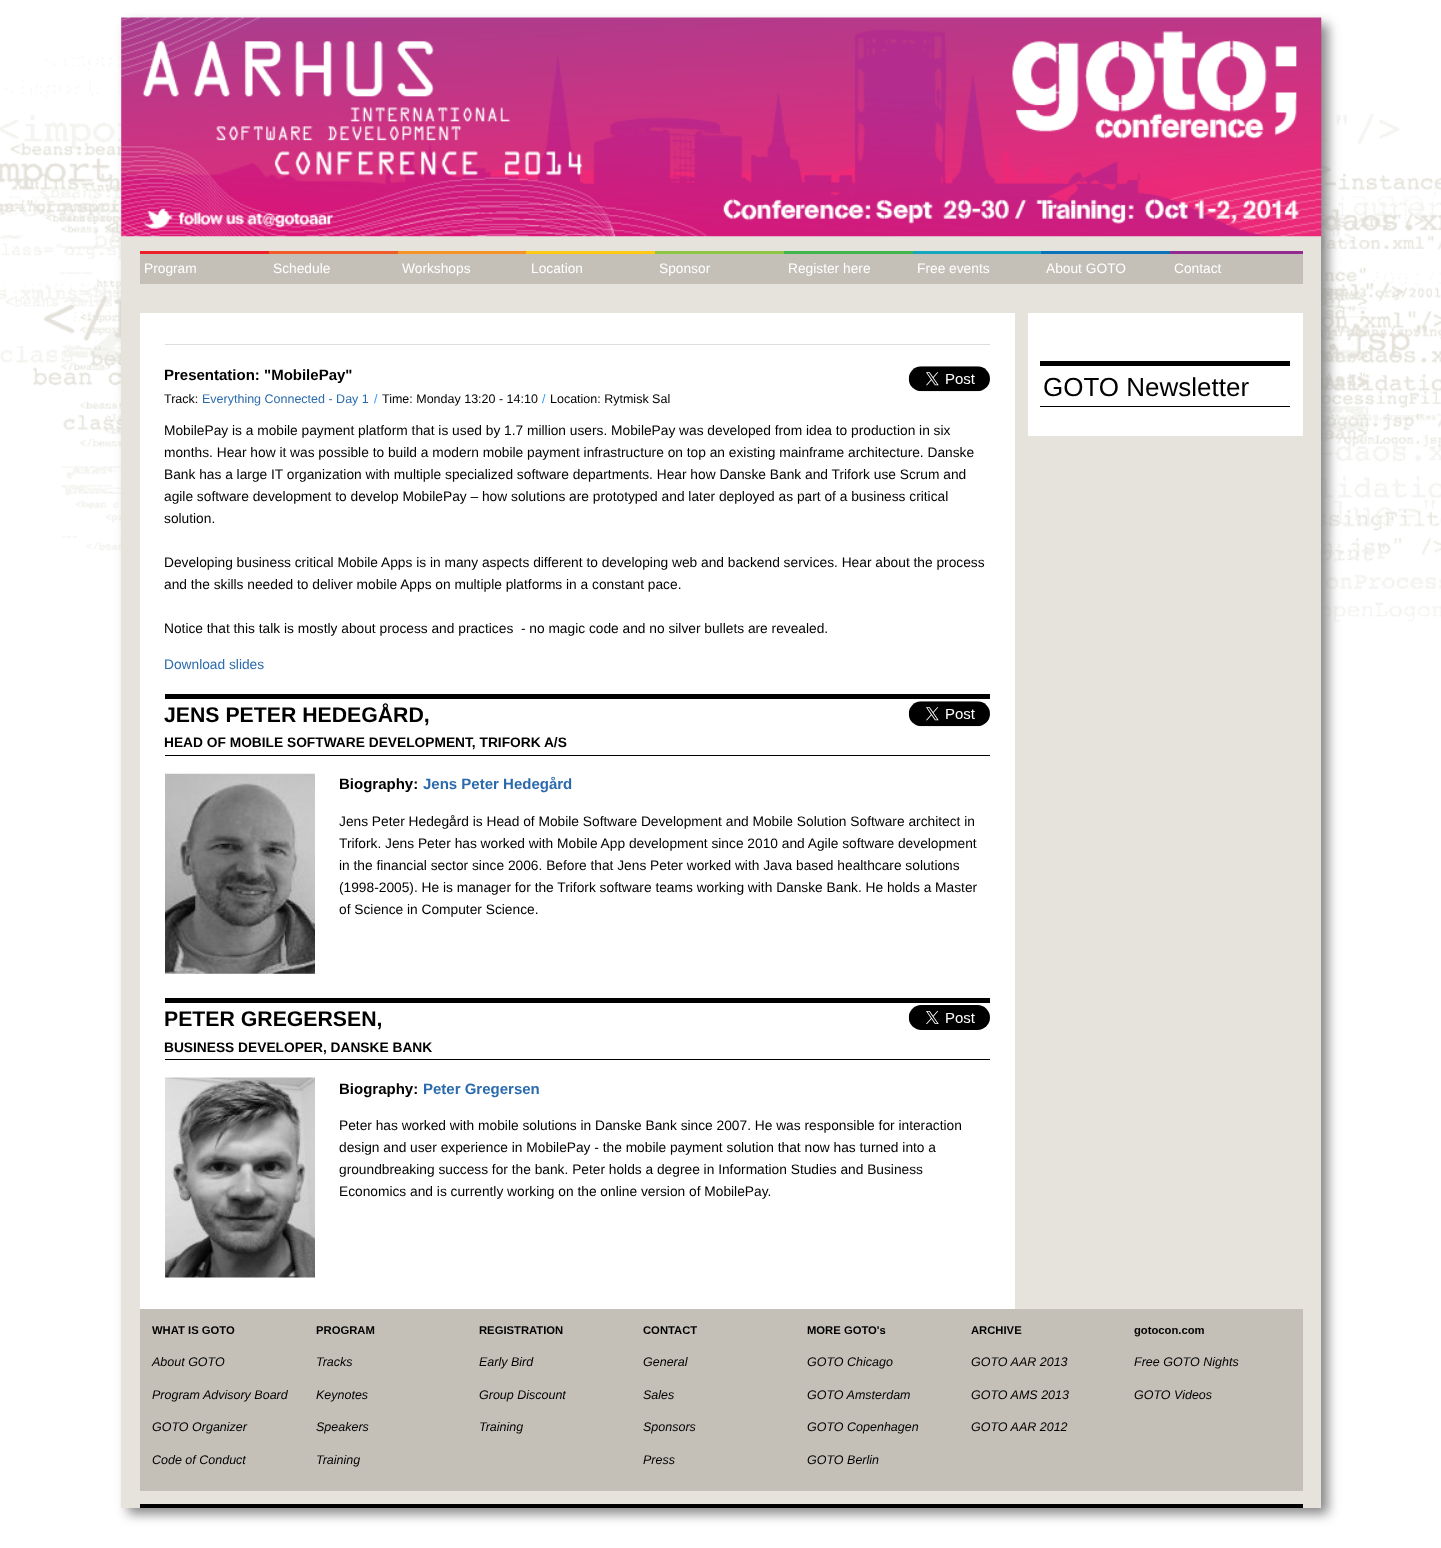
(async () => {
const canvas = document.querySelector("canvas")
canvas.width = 1441
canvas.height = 1548
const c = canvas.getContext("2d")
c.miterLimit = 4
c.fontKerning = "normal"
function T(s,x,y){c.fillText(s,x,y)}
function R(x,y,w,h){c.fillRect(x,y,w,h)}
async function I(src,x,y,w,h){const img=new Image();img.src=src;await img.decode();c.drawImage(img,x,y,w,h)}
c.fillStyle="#fff"
R(0,0,1441,1548)
await I("1.png",0,56,1441,566)
c.fillStyle="#888"
c.filter="blur(6px)"
c.beginPath()
c.rect(128,24,1200,1490)
c.fill()
c.filter="none"
c.fillStyle="#e6e3dc"
R(121,18,1200,1490)
await I("2.png",121,17,1201,220)
c.fillStyle="#c4c0b7"
R(140,254,1163,30)
c.fillStyle="#eb2028"
R(140,251,129,3)
c.font="13.75px Liberation Sans"
c.fillStyle="#fff"
T("Program",144,273)
c.fillStyle="#f05b28"
R(269,251,129,3)
c.fillStyle="#fff"
T("Schedule",273,273)
c.fillStyle="#f79426"
R(398,251,128,3)
c.fillStyle="#fff"
T("Workshops",402,273)
c.fillStyle="#feca16"
R(526,251,129,3)
c.fillStyle="#fff"
T("Location",531,273)
c.fillStyle="#8dc745"
R(655,251,129,3)
c.fillStyle="#fff"
T("Sponsor",659,273)
c.fillStyle="#40b64d"
R(784,251,129,3)
c.fillStyle="#fff"
T("Register here",788,273)
c.fillStyle="#16a7bf"
R(913,251,128,3)
c.fillStyle="#fff"
T("Free events",917,273)
c.fillStyle="#0b73b9"
R(1041,251,129,3)
c.fillStyle="#fff"
T("About GOTO",1046,273)
c.fillStyle="#922a8f"
R(1170,251,133,3)
c.fillStyle="#fff"
T("Contact",1174,273)
R(140,313,875,996)
c.fillStyle="#ddd"
R(165,344,825,1)
c.font="bold 15px Liberation Sans"
c.fillStyle="#000"
T("Presentation: \"MobilePay\"",164,380)
await I("3.png",908,366,82,26)
c.font="12.5px Liberation Sans"
T("Track:",164,403)
c.fillStyle="#2b6bad"
T("Everything Connected - Day 1",202,403)
c.fillStyle="#39f"
T("/",374,403)
c.fillStyle="#000"
T("Time: Monday 13:20 - 14:10",382,403)
c.fillStyle="#39f"
T("/",542,403)
c.fillStyle="#000"
T("Location: Rytmisk Sal",550,403)
c.font="13.75px Liberation Sans"
T("MobilePay is a mobile payment platform that is used by 1.7 million users. MobilePay was developed from idea to production in six",164,435)
T("months. Hear how it was possible to build a modern mobile payment infrastructure on top an existing mainframe architecture. Danske",164,457)
T("Bank has a large IT organization with multiple specialized software departments. Hear how Danske Bank and Trifork use Scrum and",164,479)
T("agile software development to develop MobilePay – how solutions are prototyped and later deployed as part of a business critical",164,501)
T("solution.",164,523)
T("Developing business critical Mobile Apps is in many aspects different to developing web and backend services. Hear about the process",164,567)
T("and the skills needed to deliver mobile Apps on multiple platforms in a constant pace.",164,589)
T("Notice that this talk is mostly about process and practices  - no magic code and no silver bullets are revealed.",164,633)
c.fillStyle="#2b6bad"
T("Download slides",164,669)
c.fillStyle="#000"
R(165,694,825,5)
R(165,755,825,1)
c.font="bold 21.25px Liberation Sans"
T("JENS PETER HEDEGÅRD,",164,722)
await I("3.png",908,701,82,26)
c.font="bold 13.75px Liberation Sans"
T("HEAD OF MOBILE SOFTWARE DEVELOPMENT, TRIFORK A/S",164,747)
await I("4.png",165,773,150,201)
c.font="bold 15px Liberation Sans"
T("Biography:",339,789)
c.fillStyle="#2b6bad"
T("Jens Peter Hedegård",423,789)
c.font="13.75px Liberation Sans"
c.fillStyle="#000"
T("Jens Peter Hedegård is Head of Mobile Software Development and Mobile Solution Software architect in",339,826)
T("Trifork. Jens Peter has worked with Mobile App development since 2010 and Agile software development",339,848)
T("in the financial sector since 2006. Before that Jens Peter worked with Java based healthcare solutions",339,870)
T("(1998-2005). He is manager for the Trifork software teams working with Danske Bank. He holds a Master",339,892)
T("of Science in Computer Science.",339,914)
R(165,998,825,5)
R(165,1059,825,1)
c.font="bold 21.25px Liberation Sans"
T("PETER GREGERSEN,",164,1026)
await I("5.png",908,1005,82,25)
c.font="bold 13.75px Liberation Sans"
T("BUSINESS DEVELOPER, DANSKE BANK",164,1052)
await I("6.png",165,1077,150,201)
c.font="bold 15px Liberation Sans"
T("Biography:",339,1094)
c.fillStyle="#2b6bad"
T("Peter Gregersen",423,1094)
c.font="13.75px Liberation Sans"
c.fillStyle="#000"
T("Peter has worked with mobile solutions in Danske Bank since 2007. He was responsible for interaction",339,1130)
T("design and user experience in MobilePay - the mobile payment solution that now has turned into a",339,1152)
T("groundbreaking success for the bank. Peter holds a degree in Information Studies and Business",339,1174)
T("Economics and is currently working on the online version of MobilePay.",339,1196)
c.fillStyle="#fff"
R(1028,313,275,123)
c.fillStyle="#000"
R(1040,361,250,5)
R(1040,406,250,1)
c.font="26px Liberation Sans"
T("GOTO Newsletter",1043,396)
R(140,1504,1163,4)
c.fillStyle="#c4c0b7"
R(140,1309,1163,182)
c.font="bold 11.25px Liberation Sans"
c.fillStyle="#000"
T("WHAT IS GOTO",152,1334)
c.font="italic 12.5px Liberation Sans"
T("About GOTO",152,1366)
T("Program Advisory Board",152,1399)
T("GOTO Organizer",152,1431)
T("Code of Conduct",152,1464)
c.font="bold 11.25px Liberation Sans"
T("PROGRAM",316,1334)
c.font="italic 12.5px Liberation Sans"
T("Tracks",316,1366)
T("Keynotes",316,1399)
T("Speakers",316,1431)
T("Training",316,1464)
c.font="bold 11.25px Liberation Sans"
T("REGISTRATION",479,1334)
c.font="italic 12.5px Liberation Sans"
T("Early Bird",479,1366)
T("Group Discount",479,1399)
T("Training",479,1431)
c.font="bold 11.25px Liberation Sans"
T("CONTACT",643,1334)
c.font="italic 12.5px Liberation Sans"
T("General",643,1366)
T("Sales",643,1399)
T("Sponsors",643,1431)
T("Press",643,1464)
c.font="bold 11.25px Liberation Sans"
T("MORE GOTO's",807,1334)
c.font="italic 12.5px Liberation Sans"
T("GOTO Chicago",807,1366)
T("GOTO Amsterdam",807,1399)
T("GOTO Copenhagen",807,1431)
T("GOTO Berlin",807,1464)
c.font="bold 11.25px Liberation Sans"
T("ARCHIVE",971,1334)
c.font="italic 12.5px Liberation Sans"
T("GOTO AAR 2013",971,1366)
T("GOTO AMS 2013",971,1399)
T("GOTO AAR 2012",971,1431)
c.font="bold 11.25px Liberation Sans"
T("gotocon.com",1134,1334)
c.font="italic 12.5px Liberation Sans"
T("Free GOTO Nights",1134,1366)
T("GOTO Videos",1134,1399)
})()
